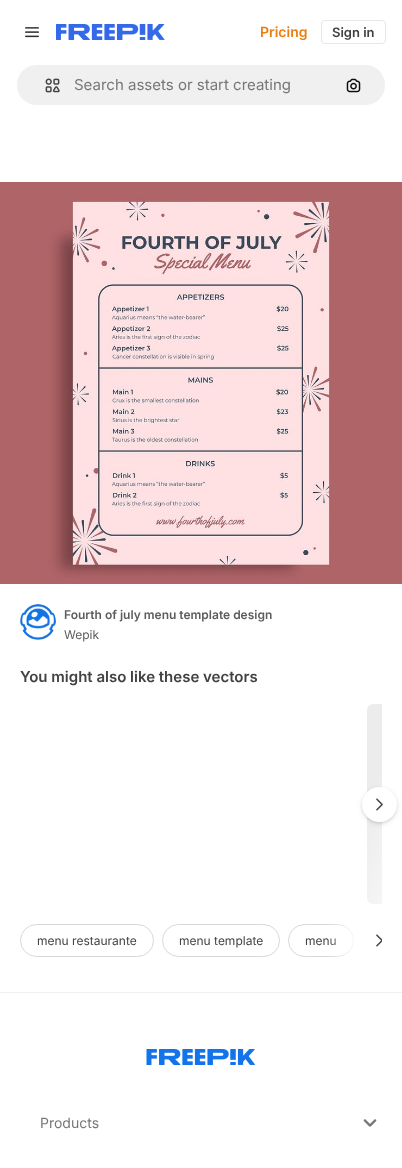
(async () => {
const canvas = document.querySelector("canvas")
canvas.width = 402
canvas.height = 1168
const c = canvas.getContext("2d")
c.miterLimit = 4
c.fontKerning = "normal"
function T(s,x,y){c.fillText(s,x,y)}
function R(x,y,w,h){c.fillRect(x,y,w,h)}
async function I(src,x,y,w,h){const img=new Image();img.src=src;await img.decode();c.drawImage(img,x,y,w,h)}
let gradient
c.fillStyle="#fff"
R(0,0,402,1168)
await I("1.png",25,27,14,11)
await I("2.png",56,24,109,16)
c.font="600 14px Inter"
c.fillStyle="#ea7e11"
T("Pricing",260,37)
c.beginPath()
c.roundRect(321.5,20.5,64,23,3.5)
c.strokeStyle="#e7e7e7"
c.stroke()
c.font="600 13px Inter"
c.fillStyle="#424242"
T("Sign in",332,37)
c.fillStyle="#f0f0f0"
c.beginPath()
c.roundRect(16.5,64.5,369,41,20.5)
c.fill()
c.strokeStyle="#fff"
c.stroke()
await I("3.png",45,78,15,15)
c.font="15px Inter"
c.fillStyle="#777"
T("Search assets or start creating",74,90)
await I("4.png",346,78,15,15)
await I("5.png",0,182,402,402)
await I("6.png",20,604,36,36)
c.font="600 12px Inter"
c.fillStyle="#5c5c5c"
T("Fourth of july menu template design",64,619)
c.font="12px Inter"
T("Wepik",64,639)
c.font="600 15px Inter"
c.fillStyle="#424242"
T("You might also like these vectors",20,682)
gradient = c.createLinearGradient(358,728,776,880)
gradient.addColorStop(.08,"#ececec")
gradient.addColorStop(.18,"#f5f5f5")
gradient.addColorStop(.33,"#ececec")
c.fillStyle = gradient
c.beginPath()
c.roundRect(367,704,15,200,[6,0,0,6])
c.fill()
c.fillStyle="#37495726"
c.filter="blur(2.5px)"
c.beginPath()
c.roundRect(362,789,35,35,17.5)
c.fill()
c.filter="none"
c.fillStyle="#3749571a"
c.filter="blur(1px)"
c.beginPath()
c.roundRect(362,788,35,35,17.5)
c.fill()
c.filter="none"
c.fillStyle="#fff"
c.beginPath()
c.arc(379.5,804.5,17.5,0,7)
c.fill()
await I("7.png",376,798,7,13)
c.beginPath()
c.roundRect(20.5,924.5,133,32,16)
c.strokeStyle="#d8d8d8"
c.stroke()
c.font="12px Inter"
c.fillStyle="#424242"
T("menu restaurante",37,945)
c.beginPath()
c.roundRect(162.5,924.5,117,32,16)
c.stroke()
T("menu template",179,945)
c.beginPath()
c.roundRect(288.5,924.5,65,32,16)
c.stroke()
T("menu",305,945)
gradient = c.createLinearGradient(362,941,327,941)
gradient.addColorStop(0,"#fff")
gradient.addColorStop(1,"#ffffff00")
c.fillStyle = gradient
R(328,924,26,33)
await I("8.png",376,934,6,13)
c.fillStyle="#f0f0f0"
R(0,992,402,1)
await I("9.png",146,1049,109,16)
c.font="14px Inter"
c.fillStyle="#777"
T("Products",40,1128)
await I("10.png",363,1119,14,8)
})()
